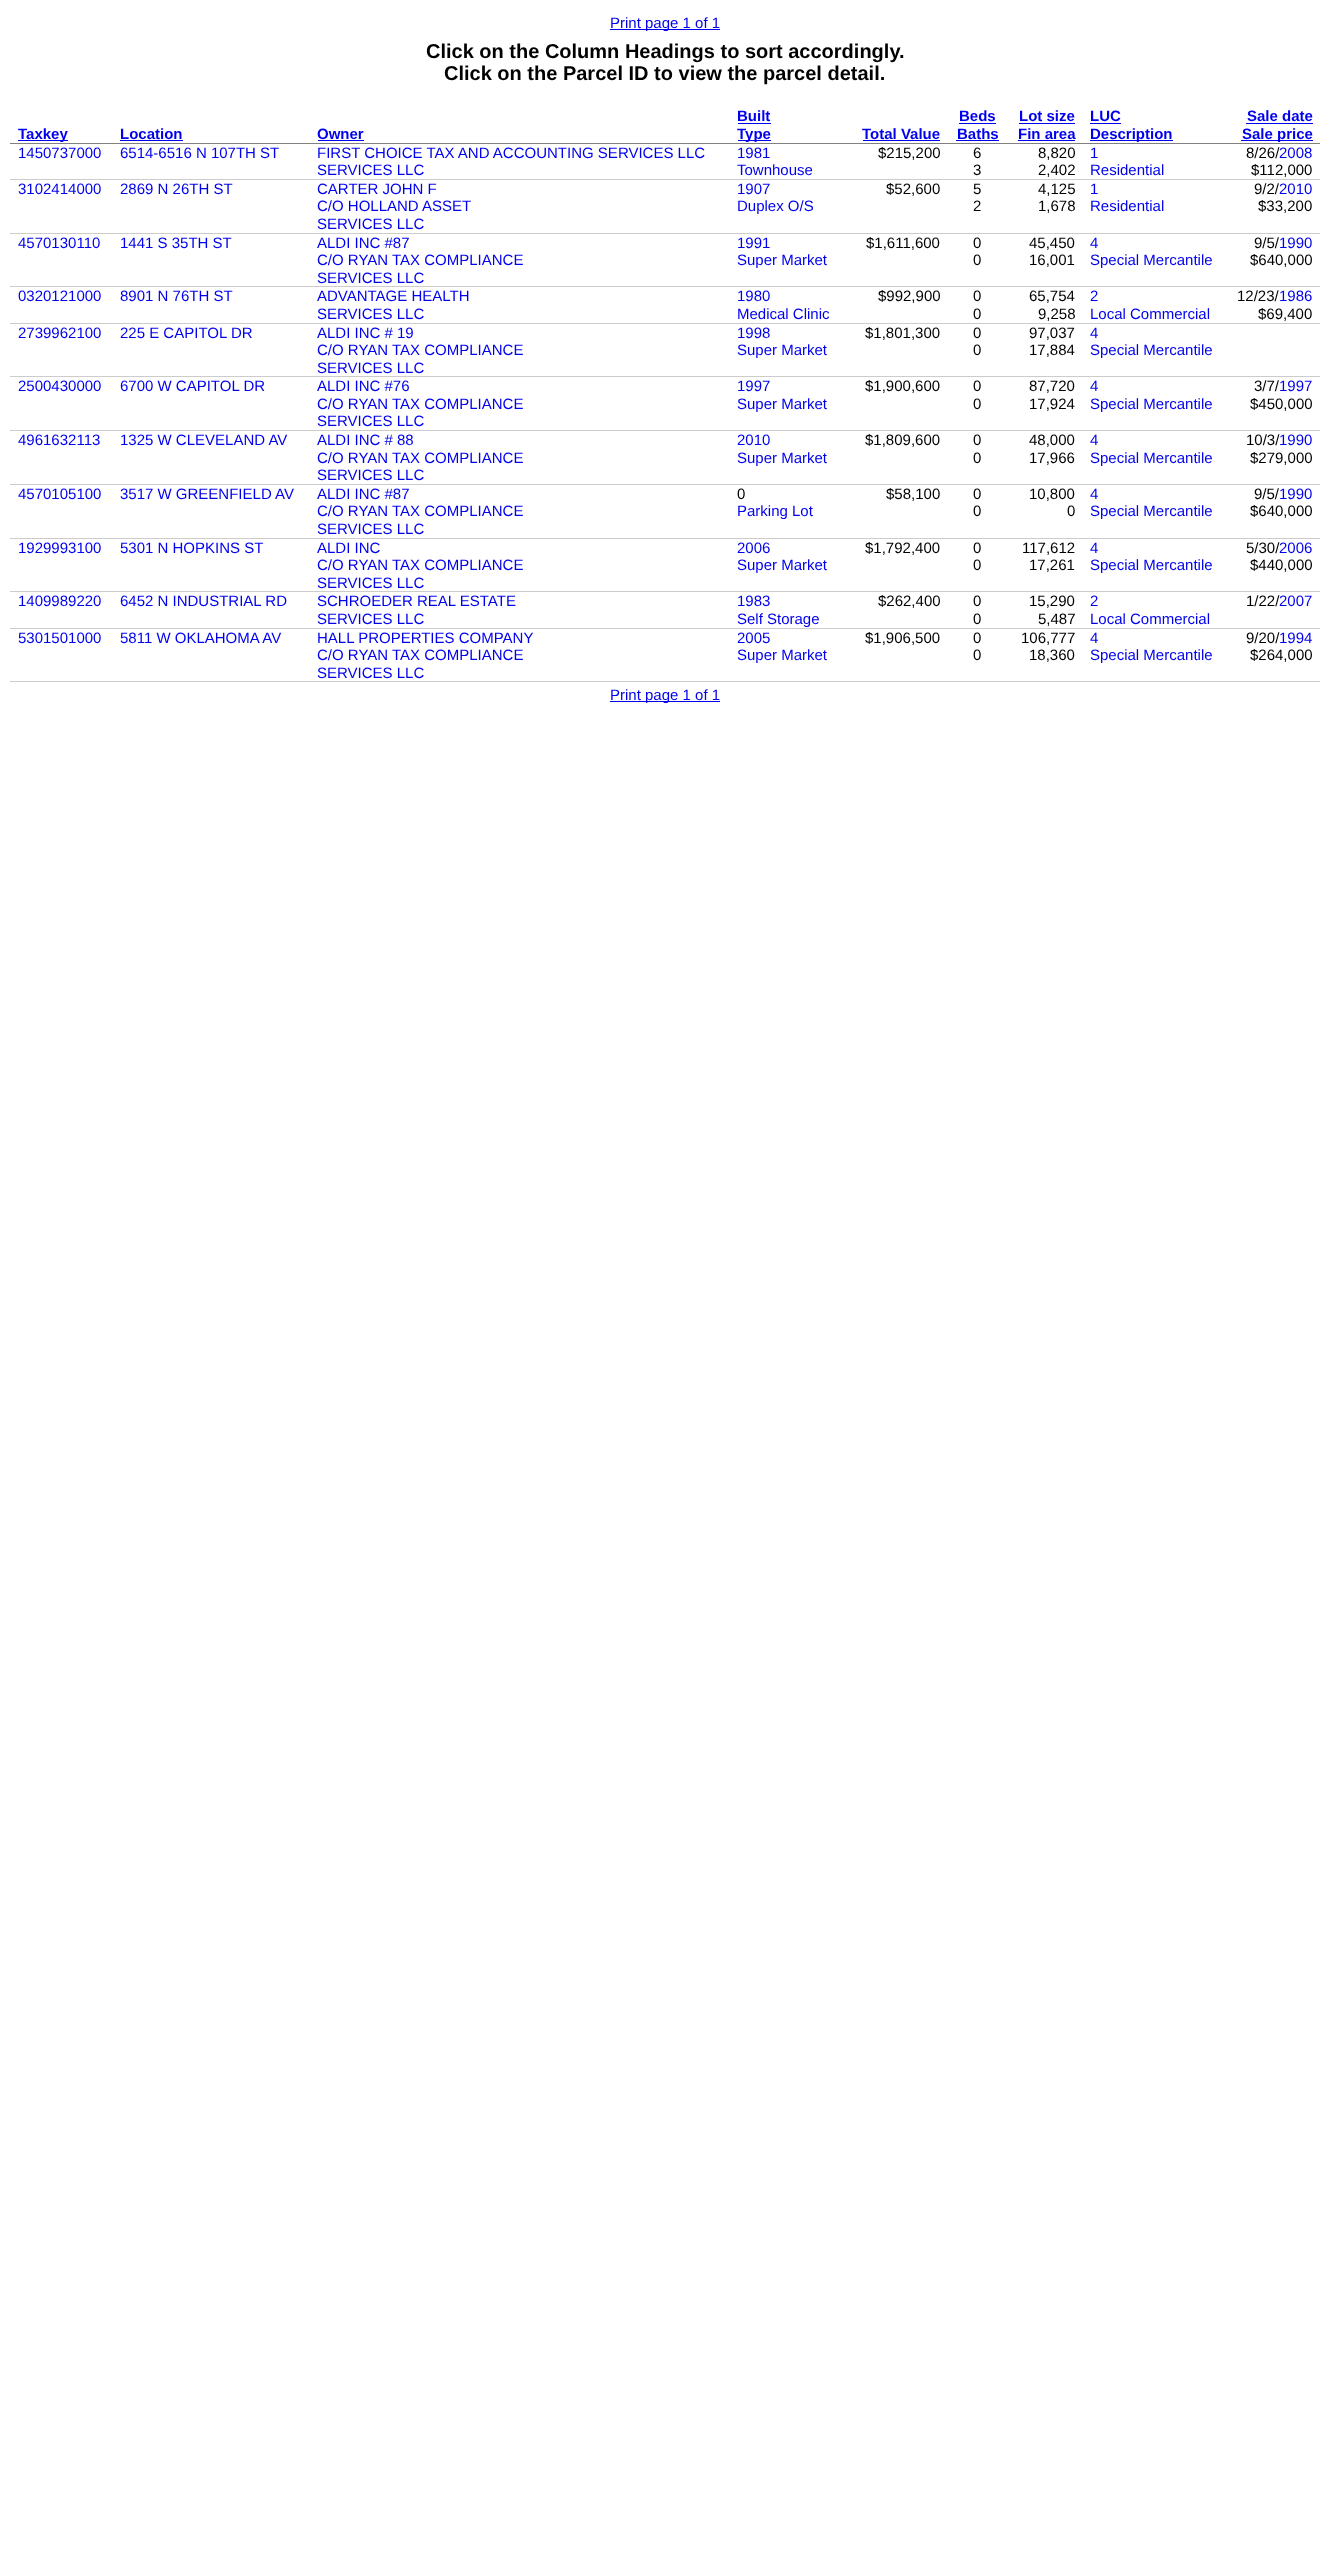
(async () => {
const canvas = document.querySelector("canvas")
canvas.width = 1329
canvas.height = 2551
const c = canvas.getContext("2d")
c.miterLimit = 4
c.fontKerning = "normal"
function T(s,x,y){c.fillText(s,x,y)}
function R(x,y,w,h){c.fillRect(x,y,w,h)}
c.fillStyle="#fff"
R(0,0,1329,2551)
c.fillStyle="#00e"
R(610,29,110,1)
c.font="15px Liberation Sans"
T("Print page 1 of 1",610,28)
c.font="bold 20px Liberation Sans"
c.fillStyle="#000"
T("Click on the Column Headings to sort accordingly.",426,58)
T("Click on the Parcel ID to view the parcel detail.",444,80)
c.fillStyle="#808080"
R(10,143,1310,1)
c.fillStyle="#00e"
R(18,140,50,1)
c.font="bold 15px Liberation Sans"
T("Taxkey",18,139)
T("Location",120,139)
R(120,140,63,1)
T("Owner",317,139)
R(318,140,46,1)
T("Built",737,121)
R(738,123,33,1)
R(738,140,33,1)
T("Type",737,139)
T("Total Value",862,139)
R(863,140,77,1)
T("Beds",959,121)
R(959,123,37,1)
T("Baths",957,139)
R(956,140,43,1)
T("Lot size",1019,121)
R(1019,123,56,1)
T("Fin area",1018,139)
R(1018,140,57,1)
T("LUC",1090,121)
R(1090,123,31,1)
R(1090,140,83,1)
T("Description",1090,139)
T("Sale date",1247,121)
R(1246,123,67,1)
R(1241,140,72,1)
T("Sale price",1242,139)
c.fillStyle="#ccc"
R(10,179,1310,1)
c.font="15px Liberation Sans"
c.fillStyle="#00e"
T("1450737000",18,158)
T("6514-6516 N 107TH ST",120,158)
T("FIRST CHOICE TAX AND ACCOUNTING SERVICES LLC",317,158)
T("SERVICES LLC",317,175)
T("1981",737,158)
T("Townhouse",737,175)
c.fillStyle="#000"
T("$215,200",878,158)
T("6",973,158)
T("3",973,175)
T("8,820",1038,158)
T("2,402",1038,175)
c.fillStyle="#00e"
T("1",1090,158)
T("Residential",1090,175)
c.fillStyle="#000"
T("8/26/",1246,158)
c.fillStyle="#00e"
T("2008",1279,158)
c.fillStyle="#000"
T("$112,000",1251,175)
c.fillStyle="#ccc"
R(10,233,1310,1)
c.fillStyle="#00e"
T("3102414000",18,194)
T("2869 N 26TH ST",120,194)
T("CARTER JOHN F",317,194)
T("C/O HOLLAND ASSET",317,211)
T("SERVICES LLC",317,229)
T("1907",737,194)
T("Duplex O/S",737,211)
c.fillStyle="#000"
T("$52,600",886,194)
T("5",973,194)
T("2",973,211)
T("4,125",1038,194)
T("1,678",1038,211)
c.fillStyle="#00e"
T("1",1090,194)
T("Residential",1090,211)
c.fillStyle="#000"
T("9/2/",1254,194)
c.fillStyle="#00e"
T("2010",1279,194)
c.fillStyle="#000"
T("$33,200",1258,211)
c.fillStyle="#ccc"
R(10,286,1310,1)
c.fillStyle="#00e"
T("4570130110",18,248)
T("1441 S 35TH ST",120,248)
T("ALDI INC #87",317,248)
T("C/O RYAN TAX COMPLIANCE",317,265)
T("SERVICES LLC",317,283)
T("1991",737,248)
T("Super Market",737,265)
c.fillStyle="#000"
T("$1,611,600",866,248)
T("0",973,248)
T("0",973,265)
T("45,450",1029,248)
T("16,001",1029,265)
c.fillStyle="#00e"
T("4",1090,248)
T("Special Mercantile",1090,265)
c.fillStyle="#000"
T("9/5/",1254,248)
c.fillStyle="#00e"
T("1990",1279,248)
c.fillStyle="#000"
T("$640,000",1250,265)
c.fillStyle="#ccc"
R(10,323,1310,1)
c.fillStyle="#00e"
T("0320121000",18,301)
T("8901 N 76TH ST",120,301)
T("ADVANTAGE HEALTH",317,301)
T("SERVICES LLC",317,319)
T("1980",737,301)
T("Medical Clinic",737,319)
c.fillStyle="#000"
T("$992,900",878,301)
T("0",973,301)
T("0",973,319)
T("65,754",1029,301)
T("9,258",1038,319)
c.fillStyle="#00e"
T("2",1090,301)
T("Local Commercial",1090,319)
c.fillStyle="#000"
T("12/23/",1237,301)
c.fillStyle="#00e"
T("1986",1279,301)
c.fillStyle="#000"
T("$69,400",1258,319)
c.fillStyle="#ccc"
R(10,376,1310,1)
c.fillStyle="#00e"
T("2739962100",18,338)
T("225 E CAPITOL DR",120,338)
T("ALDI INC # 19",317,338)
T("C/O RYAN TAX COMPLIANCE",317,355)
T("SERVICES LLC",317,373)
T("1998",737,338)
T("Super Market",737,355)
c.fillStyle="#000"
T("$1,801,300",865,338)
T("0",973,338)
T("0",973,355)
T("97,037",1029,338)
T("17,884",1029,355)
c.fillStyle="#00e"
T("4",1090,338)
T("Special Mercantile",1090,355)
c.fillStyle="#ccc"
R(10,430,1310,1)
c.fillStyle="#00e"
T("2500430000",18,391)
T("6700 W CAPITOL DR",120,391)
T("ALDI INC #76",317,391)
T("C/O RYAN TAX COMPLIANCE",317,409)
T("SERVICES LLC",317,426)
T("1997",737,391)
T("Super Market",737,409)
c.fillStyle="#000"
T("$1,900,600",865,391)
T("0",973,391)
T("0",973,409)
T("87,720",1029,391)
T("17,924",1029,409)
c.fillStyle="#00e"
T("4",1090,391)
T("Special Mercantile",1090,409)
c.fillStyle="#000"
T("3/7/",1254,391)
c.fillStyle="#00e"
T("1997",1279,391)
c.fillStyle="#000"
T("$450,000",1250,409)
c.fillStyle="#ccc"
R(10,484,1310,1)
c.fillStyle="#00e"
T("4961632113",18,445)
T("1325 W CLEVELAND AV",120,445)
T("ALDI INC # 88",317,445)
T("C/O RYAN TAX COMPLIANCE",317,463)
T("SERVICES LLC",317,480)
T("2010",737,445)
T("Super Market",737,463)
c.fillStyle="#000"
T("$1,809,600",865,445)
T("0",973,445)
T("0",973,463)
T("48,000",1029,445)
T("17,966",1029,463)
c.fillStyle="#00e"
T("4",1090,445)
T("Special Mercantile",1090,463)
c.fillStyle="#000"
T("10/3/",1246,445)
c.fillStyle="#00e"
T("1990",1279,445)
c.fillStyle="#000"
T("$279,000",1250,463)
c.fillStyle="#ccc"
R(10,538,1310,1)
c.fillStyle="#00e"
T("4570105100",18,499)
T("3517 W GREENFIELD AV",120,499)
T("ALDI INC #87",317,499)
T("C/O RYAN TAX COMPLIANCE",317,516)
T("SERVICES LLC",317,534)
c.fillStyle="#000"
T("0",737,499)
c.fillStyle="#00e"
T("Parking Lot",737,516)
c.fillStyle="#000"
T("$58,100",886,499)
T("0",973,499)
T("0",973,516)
T("10,800",1029,499)
T("0",1067,516)
c.fillStyle="#00e"
T("4",1090,499)
T("Special Mercantile",1090,516)
c.fillStyle="#000"
T("9/5/",1254,499)
c.fillStyle="#00e"
T("1990",1279,499)
c.fillStyle="#000"
T("$640,000",1250,516)
c.fillStyle="#ccc"
R(10,591,1310,1)
c.fillStyle="#00e"
T("1929993100",18,553)
T("5301 N HOPKINS ST",120,553)
T("ALDI INC",317,553)
T("C/O RYAN TAX COMPLIANCE",317,570)
T("SERVICES LLC",317,588)
T("2006",737,553)
T("Super Market",737,570)
c.fillStyle="#000"
T("$1,792,400",865,553)
T("0",973,553)
T("0",973,570)
T("117,612",1022,553)
T("17,261",1029,570)
c.fillStyle="#00e"
T("4",1090,553)
T("Special Mercantile",1090,570)
c.fillStyle="#000"
T("5/30/",1246,553)
c.fillStyle="#00e"
T("2006",1279,553)
c.fillStyle="#000"
T("$440,000",1250,570)
c.fillStyle="#ccc"
R(10,628,1310,1)
c.fillStyle="#00e"
T("1409989220",18,606)
T("6452 N INDUSTRIAL RD",120,606)
T("SCHROEDER REAL ESTATE",317,606)
T("SERVICES LLC",317,624)
T("1983",737,606)
T("Self Storage",737,624)
c.fillStyle="#000"
T("$262,400",878,606)
T("0",973,606)
T("0",973,624)
T("15,290",1029,606)
T("5,487",1038,624)
c.fillStyle="#00e"
T("2",1090,606)
T("Local Commercial",1090,624)
c.fillStyle="#000"
T("1/22/",1246,606)
c.fillStyle="#00e"
T("2007",1279,606)
c.fillStyle="#ccc"
R(10,681,1310,1)
c.fillStyle="#00e"
T("5301501000",18,643)
T("5811 W OKLAHOMA AV",120,643)
T("HALL PROPERTIES COMPANY",317,643)
T("C/O RYAN TAX COMPLIANCE",317,660)
T("SERVICES LLC",317,678)
T("2005",737,643)
T("Super Market",737,660)
c.fillStyle="#000"
T("$1,906,500",865,643)
T("0",973,643)
T("0",973,660)
T("106,777",1021,643)
T("18,360",1029,660)
c.fillStyle="#00e"
T("4",1090,643)
T("Special Mercantile",1090,660)
c.fillStyle="#000"
T("9/20/",1246,643)
c.fillStyle="#00e"
T("1994",1279,643)
c.fillStyle="#000"
T("$264,000",1250,660)
c.fillStyle="#00e"
R(610,701,110,1)
T("Print page 1 of 1",610,700)
})()
